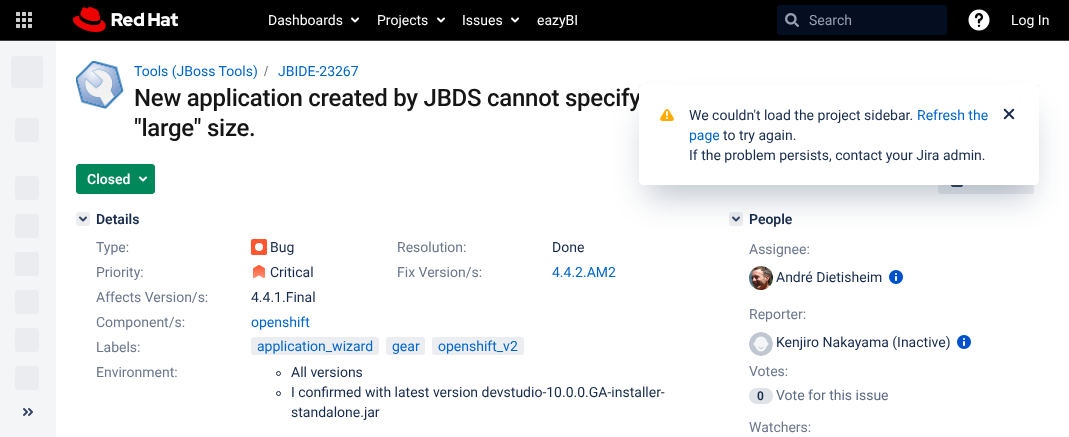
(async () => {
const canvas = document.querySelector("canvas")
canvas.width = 1069
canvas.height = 437
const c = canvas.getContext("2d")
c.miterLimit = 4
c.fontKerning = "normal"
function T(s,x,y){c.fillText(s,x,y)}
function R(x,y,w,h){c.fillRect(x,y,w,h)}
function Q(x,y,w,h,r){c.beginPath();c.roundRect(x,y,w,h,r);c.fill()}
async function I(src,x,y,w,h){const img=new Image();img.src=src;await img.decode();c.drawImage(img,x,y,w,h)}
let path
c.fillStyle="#fff"
R(0,0,1069,437)
c.fillStyle="#000"
R(0,0,1069,40)
c.fillStyle="#3c3f42"
R(0,40,1069,1)
await I("1.png",16,12,16,16)
await I("2.png",73,7,105,25)
c.font="14px Roboto"
c.fillStyle="#fff"
T("Dashboards",268,25)
await I("3.png",351,17,8,6)
T("Projects",377,25)
await I("3.png",437,17,8,6)
T("Issues",462,25)
await I("3.png",511,17,8,6)
T("eazyBI",537,25)
c.fillStyle="#040e20"
Q(777,5,170,30,3)
await I("4.png",785,13,14,14)
c.fillStyle="#97a0af"
T("Search",809,25)
await I("5.png",968,9,22,22)
c.fillStyle="#fff"
T("Log In",1011,25)
c.fillStyle="#f4f5f7"
R(0,41,56,396)
c.fillStyle="#ebecf0"
Q(11,56,32,32,3)
Q(15,118,24,24,3)
Q(15,176,24,24,3)
Q(15,214,24,24,3)
Q(15,252,24,24,3)
Q(15,290,24,24,3)
Q(15,328,24,24,3)
Q(15,366,24,24,3)
await I("6.png",23,408,10,8)
await I("7.png",76,61,48,48)
c.fillStyle="#06c"
T("Tools (JBoss Tools)",134,76)
c.fillStyle="#707070"
path = new Path2D("M265 76l3-10h-1l-3 10z")
c.fill(path)
c.fillStyle="#06c"
T("JBIDE-23267",278,76)
c.letterSpacing="-0.25px"
c.font="500 24px Roboto"
c.fillStyle="#151515"
T("New application created by JBDS cannot specify",134,106)
T("\"large\" size.",134,136)
c.fillStyle="#00875a"
c.beginPath()
c.roundRect(76.5,164.5,78,29,2.5)
c.fill()
c.strokeStyle="#00875a"
c.stroke()
c.letterSpacing="0px"
c.font="600 14px Roboto"
c.fillStyle="#fff"
T("Closed",87,184)
await I("8.png",139,176,8,6)
c.fillStyle="#ebedf0"
Q(938,164,96,30,3)
await I("9.png",951,185,12,2)
Q(76,212,14,14,3)
await I("10.png",79,216,8,6)
c.fillStyle="#172b4d"
T("Details",96,224)
c.font="14px Roboto"
c.fillStyle="#6b778c"
T("Type:",96,252)
await I("11.png",251,239,16,16)
c.fillStyle="#172b4d"
T("Bug",270,252)
c.fillStyle="#6b778c"
T("Resolution:",397,252)
c.fillStyle="#172b4d"
T("Done",552,252)
c.fillStyle="#6b778c"
T("Priority:",96,277)
await I("12.png",253,265,12,14)
c.fillStyle="#172b4d"
T("Critical",270,277)
c.fillStyle="#6b778c"
T("Fix Version/s:",397,277)
c.fillStyle="#06c"
T("4.4.2.AM2",552,277)
c.fillStyle="#6b778c"
T("Affects Version/s:",96,302)
c.fillStyle="#172b4d"
T("4.4.1.Final",251,302)
c.fillStyle="#6b778c"
T("Component/s:",96,327)
c.fillStyle="#06c"
T("openshift",251,327)
c.fillStyle="#6b778c"
T("Labels:",96,352)
c.fillStyle="#ebedf0"
Q(251,337,128,18,3)
c.fillStyle="#06c"
T("application_wizard",257,351)
c.fillStyle="#ebedf0"
Q(386,337,39,18,3)
c.fillStyle="#06c"
T("gear",392,351)
c.fillStyle="#ebedf0"
Q(432,337,92,18,3)
c.fillStyle="#06c"
T("openshift_v2",438,351)
c.fillStyle="#6b778c"
T("Environment:",96,377)
c.beginPath()
c.arc(278.5,373.5,2,0,7)
c.strokeStyle="#172b4d"
c.stroke()
c.fillStyle="#172b4d"
T("All versions",291,377)
c.beginPath()
c.arc(278.5,393.5,2,0,7)
c.stroke()
T("I confirmed with latest version devstudio-10.0.0.GA-installer-",291,397)
T("standalone.jar",291,417)
c.fillStyle="#ebedf0"
Q(729,212,14,14,3)
await I("10.png",732,216,8,6)
c.font="600 14px Roboto"
c.fillStyle="#172b4d"
T("People",749,224)
c.font="14px Roboto"
c.fillStyle="#6b778c"
T("Assignee:",749,254)
await I("13.png",749,266,24,24)
c.fillStyle="#172b4d"
T("André Dietisheim",776,282)
await I("14.png",889,270,14,14)
c.fillStyle="#6b778c"
T("Reporter:",749,319)
await I("15.png",749,332,24,24)
c.fillStyle="#172b4d"
T("Kenjiro Nakayama (Inactive)",776,347)
await I("14.png",957,335,14,14)
c.fillStyle="#6b778c"
T("Votes:",749,376)
c.fillStyle="#dfe2e6"
Q(749,388,24,16,8)
c.font="600 12px Roboto"
c.fillStyle="#172b4d"
T("0",757,400)
c.font="14px Roboto"
c.fillStyle="#5e6c84"
T("Vote for this issue",776,400)
c.fillStyle="#6b778c"
T("Watchers:",749,432)
c.fillStyle="#091e4240"
c.filter="blur(0.5px)"
c.beginPath()
c.roundRect(639,85,400,100,3)
c.fill()
c.filter="none"
c.filter="blur(16px)"
c.beginPath()
c.rect(647,113,384,84)
c.fill()
c.filter="none"
c.fillStyle="#fff"
Q(639,85,400,100,3)
await I("16.png",660,109,14,12)
c.fillStyle="#172b4d"
T("We couldn't load the project sidebar.",689,120)
c.fillStyle="#06c"
T("Refresh the",917,120)
await I("17.png",1003,108,12,12)
T("page",689,140)
c.fillStyle="#172b4d"
T("to try again.",723,140)
T("If the problem persists, contact your Jira admin.",689,160)
})()
